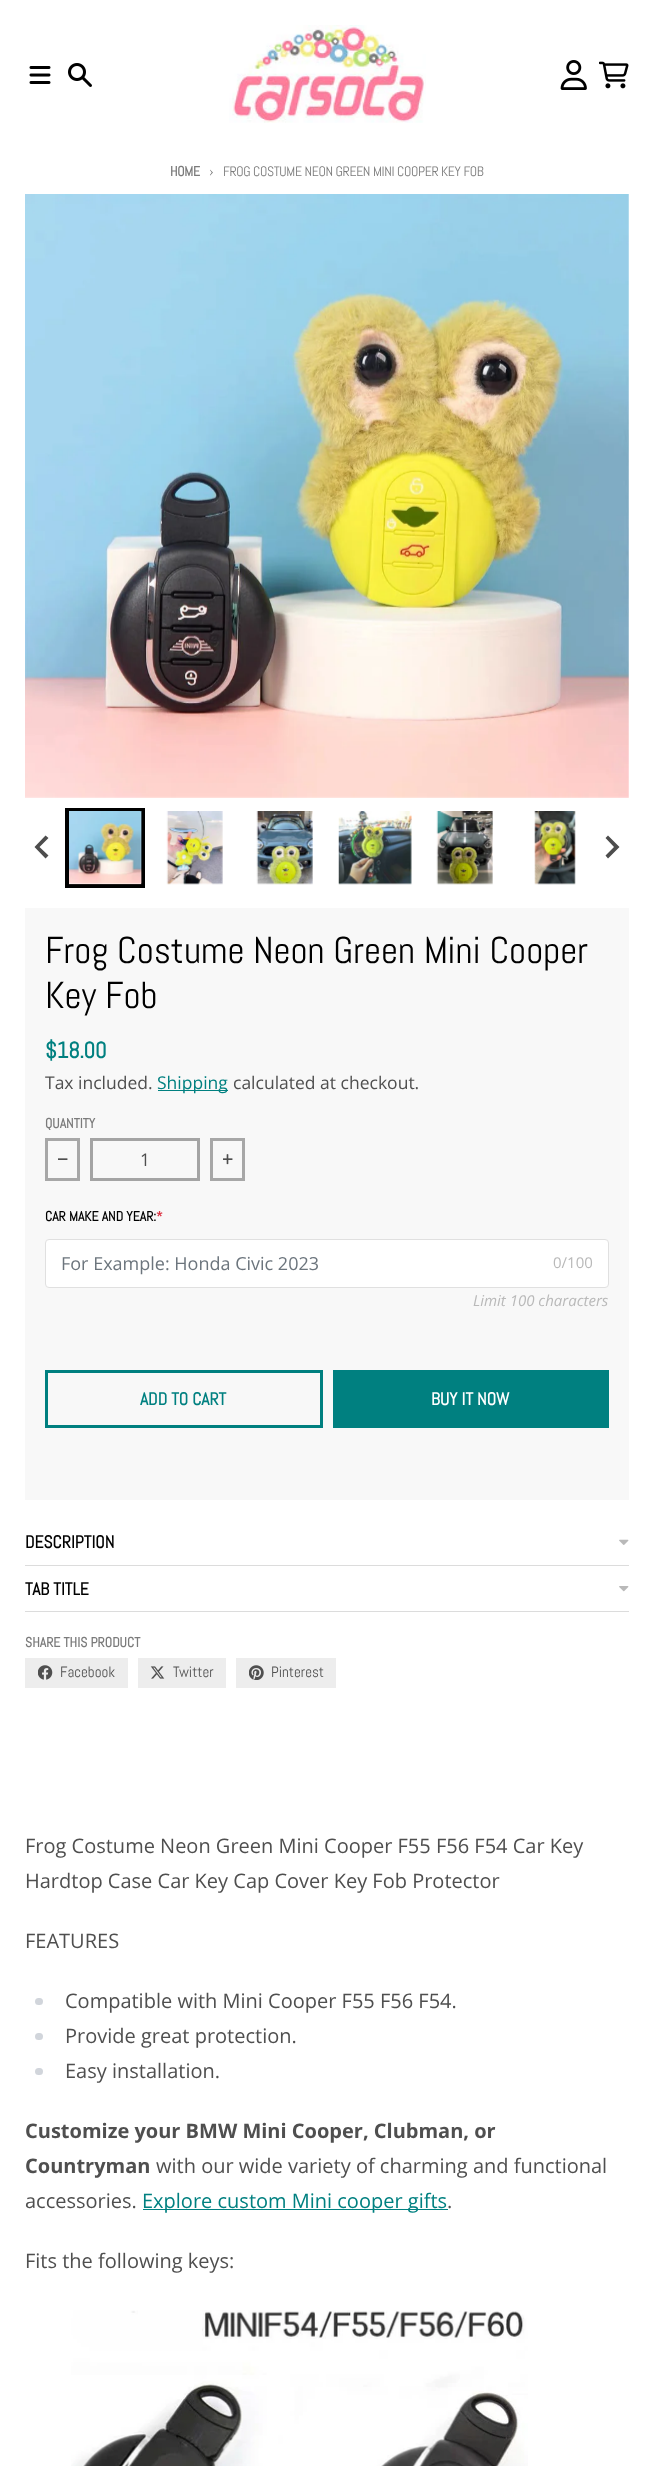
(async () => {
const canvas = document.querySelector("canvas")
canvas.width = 653
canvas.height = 2466
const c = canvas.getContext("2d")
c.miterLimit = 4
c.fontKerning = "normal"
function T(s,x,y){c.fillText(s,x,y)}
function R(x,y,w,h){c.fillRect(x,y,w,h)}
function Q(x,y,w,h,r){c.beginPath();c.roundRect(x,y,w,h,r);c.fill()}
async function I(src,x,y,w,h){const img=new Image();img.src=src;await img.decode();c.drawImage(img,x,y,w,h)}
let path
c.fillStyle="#fff"
R(0,0,653,2466)
await I("1.png",29,66,22,18)
await I("2.png",68,63,24,24)
await I("3.png",229,25,197,98)
await I("4.png",560,60,27,30)
await I("5.png",599,61,30,28)
c.letterSpacing="-0.35px"
c.font="bold 13.75px Abel"
c.fillStyle="#7b7b7b"
T("HOME",170,176)
c.font="15px Abel"
T("›",209,176)
c.font="13.75px Abel"
T("FROG COSTUME NEON GREEN MINI COOPER KEY FOB",223,176)
await I("6.png",25,194,604,604)
c.strokeStyle="#000"
c.lineWidth=4
c.strokeRect(67,810,76,76)
await I("7.png",69,811,73,74)
await I("8.png",166,811,57,74)
await I("9.png",256,811,57,74)
await I("10.png",338,811,74,74)
await I("11.png",436,811,57,74)
await I("12.png",534,811,42,74)
c.fillStyle="#4d4d4d"
path = new Path2D("M45.5 835.5l3 2.5l-9 9l9 8.5l-3 3l-11-11.5z")
c.fill(path)
path = new Path2D("M608 835.5l-2.5 2.5l8.5 9l-8.5 8.5l2.5 3l11.5-11.5z")
c.fill(path)
c.fillStyle="#f8f8f8"
R(25,908,604,592)
c.letterSpacing="0px"
c.font="37.5px Abel"
c.fillStyle="#000"
T("Frog Costume Neon Green Mini Cooper",45,963)
T("Key Fob",45,1008)
c.font="bold 22.5px Abel"
c.fillStyle="#008080"
T("$18.00",45,1058)
c.font="17.5px Open Sans"
c.fillStyle="#4f4f4f"
T("Tax included.",45,1089)
c.fillStyle="#008080"
R(158,1090,70,1)
T("Shipping",157,1089)
c.fillStyle="#4f4f4f"
T("calculated at checkout.",233,1089)
c.font="bold 13.75px Abel"
c.fillStyle="#7b7b7b"
T("QUANTITY",45,1128)
c.strokeStyle="#a7a7a7"
c.lineWidth=3
c.strokeRect(46.5,1139.5,32,40)
await I("13.png",58,1158,10,2)
c.strokeStyle="#a4a4a4"
c.strokeRect(91.5,1139.5,107,40)
c.font="17.5px Open Sans"
c.fillStyle="#4f4f4f"
T("1",140,1166)
c.strokeStyle="#a7a7a7"
c.strokeRect(211.5,1139.5,32,40)
await I("14.png",223,1154,10,11)
c.font="bold 13.75px Abel"
c.fillStyle="#000"
T("CAR MAKE AND YEAR:",45,1221)
c.fillStyle="#dc3545"
T("*",156,1221)
c.fillStyle="#fff"
c.beginPath()
c.roundRect(45.5,1239.5,563,48,3.5)
c.fill()
c.strokeStyle="#e0e0e0"
c.lineWidth=1
c.stroke()
c.font="18px Open Sans"
c.fillStyle="#6c757d"
T("For Example: Honda Civic 2023",61,1270)
c.font="15px Open Sans"
c.fillStyle="#b9b9b9"
T("0/100",553,1268)
c.font="italic 15px Open Sans"
T("Limit 100 characters",473,1306)
c.strokeStyle="#008080"
c.lineWidth=3
c.strokeRect(46.5,1371.5,275,55)
c.font="bold 17.5px Abel"
c.fillStyle="#008080"
T("ADD TO CART",140,1405)
R(333,1370,276,58)
c.fillStyle="#fff"
T("BUY IT NOW",431,1405)
c.fillStyle="#dcdcdc"
R(25,1565,604,1)
c.fillStyle="#000"
T("DESCRIPTION",25,1548)
await I("15.png",619,1539,10,6)
c.fillStyle="#dcdcdc"
R(25,1611,604,1)
c.fillStyle="#000"
T("TAB TITLE",25,1595)
await I("16.png",619,1586,10,6)
c.font="bold 13.75px Abel"
c.fillStyle="#7b7b7b"
T("SHARE THIS PRODUCT",25,1647)
c.fillStyle="#ededed"
R(25,1658,103,30)
await I("17.png",38,1665,15,15)
c.font="15px Abel"
c.fillStyle="#4f4f4f"
T("Facebook",60,1677)
c.fillStyle="#ededed"
R(138,1658,88,30)
await I("18.png",150,1666,15,13)
c.fillStyle="#4f4f4f"
T("Twitter",173,1677)
c.fillStyle="#ededed"
R(236,1658,100,30)
await I("19.png",249,1665,15,15)
c.fillStyle="#4f4f4f"
T("Pinterest",271,1677)
c.font="20px Open Sans"
T("Frog Costume Neon Green Mini Cooper F55 F56 F54 Car Key",25,1853)
T("Hardtop Case Car Key Cap Cover Key Fob Protector",25,1888)
T("FEATURES",25,1948)
c.fillStyle="#d1d5db"
Q(35,1998,8,7,3.5)
c.fillStyle="#4f4f4f"
T("Compatible with Mini Cooper F55 F56 F54.",65,2008)
c.fillStyle="#d1d5db"
Q(35,2033,8,7,3.5)
c.fillStyle="#4f4f4f"
T("Provide great protection.",65,2043)
c.fillStyle="#d1d5db"
Q(35,2068,8,7,3.5)
c.fillStyle="#4f4f4f"
T("Easy installation.",65,2078)
c.font="bold 20px Open Sans"
T("Customize your BMW Mini Cooper, Clubman, or",25,2138)
T("Countryman",25,2173)
c.font="20px Open Sans"
T("with our wide variety of charming and functional",156,2173)
T("accessories.",25,2208)
c.fillStyle="#008080"
R(143,2209,305,1)
T("Explore custom Mini cooper gifts",142,2208)
c.fillStyle="#4f4f4f"
T(".",447,2208)
T("Fits the following keys:",25,2268)
await I("20.png",71,2310,457,156)
})()
